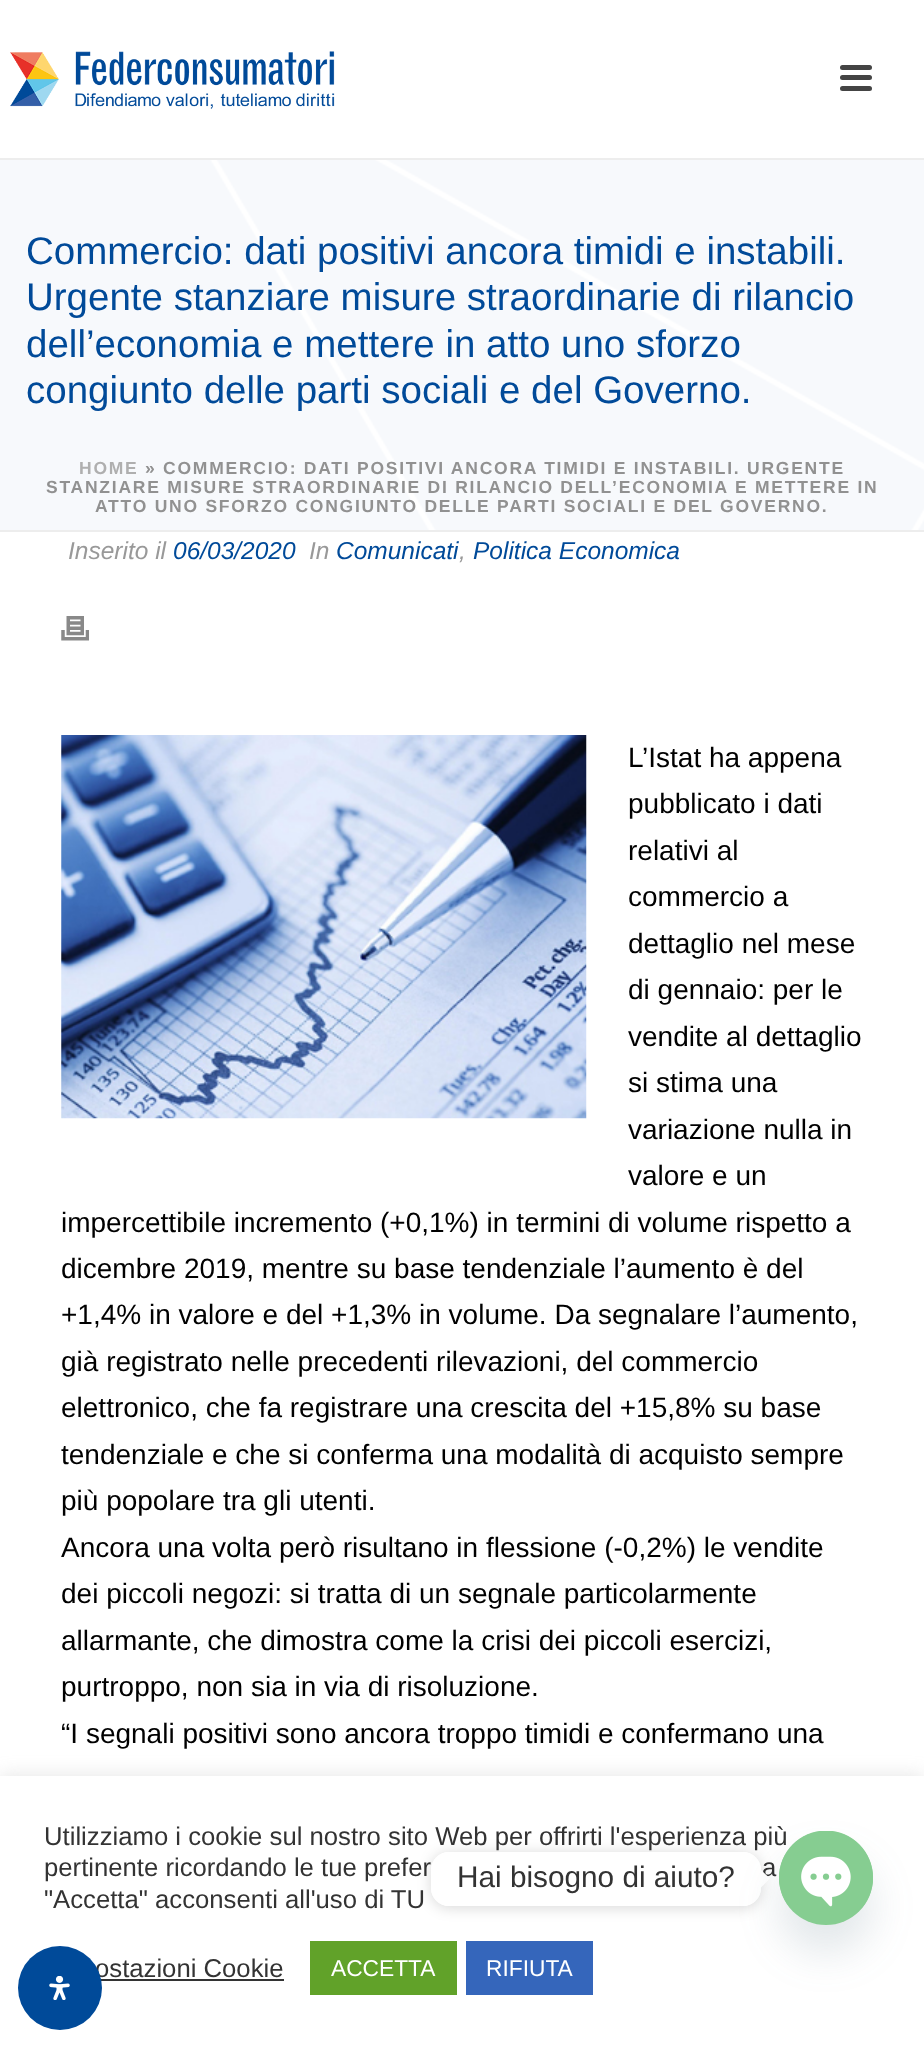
(async () => {
const canvas = document.querySelector("canvas")
canvas.width = 924
canvas.height = 2046
const c = canvas.getContext("2d")
c.miterLimit = 4
c.fontKerning = "normal"
function T(s,x,y){c.fillText(s,x,y)}
function R(x,y,w,h){c.fillRect(x,y,w,h)}
function Q(x,y,w,h,r){c.beginPath();c.roundRect(x,y,w,h,r);c.fill()}
async function I(src,x,y,w,h){const img=new Image();img.src=src;await img.decode();c.drawImage(img,x,y,w,h)}
let path
c.fillStyle="#f7f9fc"
R(0,0,924,2046)
await I("1.png",209,160,715,370)
c.fillStyle="#ededed"
R(0,530,924,2)
R(0,158,924,2)
c.fillStyle="#fff"
R(0,0,924,158)
await I("2.png",10,51,325,58)
c.fillStyle="#444"
Q(840,65,32,5,2.5)
Q(840,75,32,5,2.5)
Q(840,86,32,5,2.5)
c.font="38.5px Liberation Sans"
c.fillStyle="#004a99"
T("Commercio: dati positivi ancora timidi e instabili.",26,264)
T("Urgente stanziare misure straordinarie di rilancio",26,310)
T("dell’economia e mettere in atto uno sforzo",26,357)
T("congiunto delle parti sociali e del Governo.",26,403)
c.letterSpacing="1.75px"
c.font="bold 17.5px Liberation Sans"
c.fillStyle="#afafaf"
T("HOME",79,474)
c.fillStyle="#919191"
T("» COMMERCIO: DATI POSITIVI ANCORA TIMIDI E INSTABILI. URGENTE",145,474)
T("STANZIARE MISURE STRAORDINARIE DI RILANCIO DELL’ECONOMIA E METTERE IN",46,493)
T("ATTO UNO SFORZO CONGIUNTO DELLE PARTI SOCIALI E DEL GOVERNO.",95,512)
c.fillStyle="#fff"
R(0,532,924,1244)
c.letterSpacing="0px"
c.font="italic 24.5px Liberation Sans"
c.fillStyle="#999"
T("Inserito il",68,559)
c.fillStyle="#004a99"
T("06/03/2020",173,559)
c.fillStyle="#999"
T("In",309,559)
c.fillStyle="#004a99"
T("Comunicati",336,559)
c.fillStyle="#999"
T(",",459,559)
c.fillStyle="#004a99"
T("Politica Economica",473,559)
await I("3.png",61,616,28,25)
await I("4.png",61,735,526,384)
c.font="28px Liberation Sans"
c.fillStyle="#000"
T("L’Istat ha appena",628,767)
T("pubblicato i dati",628,813)
T("relativi al",628,860)
T("commercio a",628,906)
T("dettaglio nel mese",628,953)
T("di gennaio: per le",628,999)
T("vendite al dettaglio",628,1046)
T("si stima una",628,1092)
T("variazione nulla in",628,1139)
T("valore e un",628,1185)
T("impercettibile incremento (+0,1%) in termini di volume rispetto a",61,1232)
T("dicembre 2019, mentre su base tendenziale l’aumento è del",61,1278)
T("+1,4% in valore e del +1,3% in volume. Da segnalare l’aumento,",61,1324)
T("già registrato nelle precedenti rilevazioni, del commercio",61,1371)
T("elettronico, che fa registrare una crescita del +15,8% su base",61,1417)
T("tendenziale e che si conferma una modalità di acquisto sempre",61,1464)
T("più popolare tra gli utenti.",61,1510)
T("Ancora una volta però risultano in flessione (-0,2%) le vendite",61,1557)
T("dei piccoli negozi: si tratta di un segnale particolarmente",61,1603)
T("allarmante, che dimostra come la crisi dei piccoli esercizi,",61,1650)
T("purtroppo, non sia in via di risoluzione.",61,1696)
T("“I segnali positivi sono ancora troppo timidi e confermano una",61,1743)
c.fillStyle="#acabab4d"
c.filter="blur(9px)"
c.beginPath()
c.rect(0,1775,924,271)
c.fill()
c.filter="none"
c.fillStyle="#fff"
R(0,1776,924,270)
c.font="25.7px Liberation Sans"
c.fillStyle="#333"
T("Utilizziamo i cookie sul nostro sito Web per offrirti l'esperienza più",44,1845)
T("pertinente ricordando le tue prefer",44,1876)
T("a",762,1876)
T("\"Accetta\" acconsenti all'uso di TU",44,1908)
T("ostazioni Cookie",95,1977)
R(101,1979,183,2)
c.fillStyle="#61a229"
R(310,1941,147,54)
c.font="22.75px Liberation Sans"
c.fillStyle="#fff"
T("ACCETTA",331,1976)
c.fillStyle="#3566bb"
R(466,1941,127,54)
c.fillStyle="#fff"
T("RIFIUTA",486,1976)
c.save()
path = new Path2D("M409 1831h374v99h-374zm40 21h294c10 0 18 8 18 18v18c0 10-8 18-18 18h-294c-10 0-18-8-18-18v-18c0-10 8-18 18-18z")
c.clip(path,"evenodd")
c.fillStyle="#00000026"
c.filter="blur(7px)"
c.beginPath()
c.roundRect(431,1853,330,55,18)
c.fill()
c.filter="none"
c.restore()
Q(431,1852,330,54,18)
c.font="29.75px Liberation Sans"
c.fillStyle="#333"
T("Hai bisogno di aiuto?",457,1887)
c.fillStyle="#fff"
path = new Path2D("M761 1887.5v-17.5l9 8.5z")
c.fill(path)
c.fillStyle="#49687e29"
c.filter="blur(21px)"
c.beginPath()
c.roundRect(779,1859,94,94,47)
c.fill()
c.filter="none"
c.fillStyle="#86cd91"
c.beginPath()
c.arc(826,1878,47,0,7)
c.fill()
await I("5.png",779,1831,94,77)
c.fillStyle="#004a99"
c.beginPath()
c.arc(60,1988,42,0,7)
c.fill()
await I("6.png",49,1976,21,24)
})()
